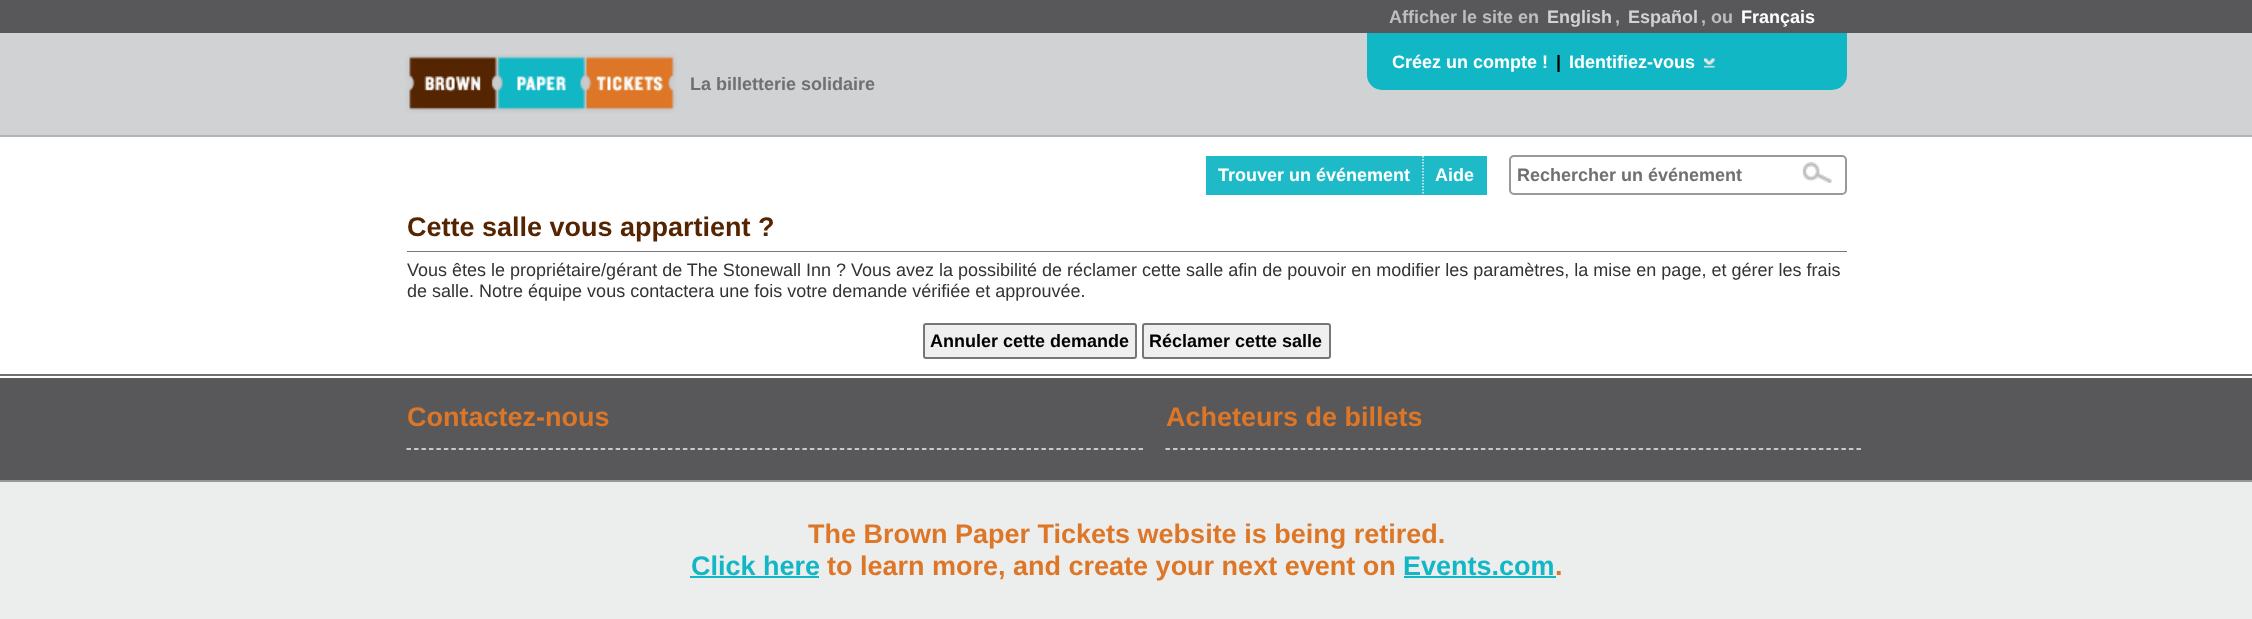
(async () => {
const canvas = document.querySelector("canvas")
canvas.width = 2252
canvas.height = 619
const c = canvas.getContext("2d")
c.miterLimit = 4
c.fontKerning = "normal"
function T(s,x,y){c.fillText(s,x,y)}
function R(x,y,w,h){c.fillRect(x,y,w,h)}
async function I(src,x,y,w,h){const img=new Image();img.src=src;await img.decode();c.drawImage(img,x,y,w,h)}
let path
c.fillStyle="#58585a"
R(0,0,2252,619)
c.font="bold 18px Liberation Sans"
c.fillStyle="#bdbec0"
T("Afficher le site en",1389,23)
c.fillStyle="#d1d2d4"
T("English",1547,23)
c.fillStyle="#bdbec0"
T(",",1615,23)
c.fillStyle="#d1d2d4"
T("Español",1628,23)
c.fillStyle="#bdbec0"
T(", ou",1701,23)
c.fillStyle="#fff"
T("Français",1741,23)
c.fillStyle="#d1d2d4"
R(0,33,2252,102)
c.fillStyle="#b2b4b6"
R(0,135,2252,2)
await I("1.png",405,54,272,59)
c.fillStyle="#12b7c6"
c.beginPath()
c.roundRect(1367,33,480,57,[0,0,15,15])
c.fill()
c.fillStyle="#fff"
T("Créez un compte !",1392,68)
c.fillStyle="#000"
T("|",1556,68)
c.fillStyle="#fff"
T("Identifiez-vous",1569,68)
await I("2.png",1704,58,11,10)
c.fillStyle="#707070"
T("La billetterie solidaire",690,90)
c.fillStyle="#fff"
R(0,137,2252,241)
c.fillStyle="#1fbac8"
R(1206,156,281,39)
path = new Path2D("M1423 156v39")
c.strokeStyle="#efefef"
c.lineWidth=1.5
c.setLineDash([1.5,1.5])
c.stroke(path)
c.fillStyle="#fff"
T("Trouver un événement",1218,181)
T("Aide",1435,181)
c.beginPath()
c.roundRect(1510,156,336,38,4)
c.strokeStyle="#999"
c.lineWidth=2
c.setLineDash([])
c.stroke()
c.fillStyle="#707070"
T("Rechercher un événement",1517,181)
await I("3.png",1802,162,30,21)
c.fillStyle="#777"
R(407,251,1440,1)
c.font="bold 27px Liberation Sans"
c.fillStyle="#552502"
T("Cette salle vous appartient ?",407,236)
c.font="18px Liberation Sans"
c.fillStyle="#333"
T("Vous êtes le propriétaire/gérant de The Stonewall Inn ? Vous avez la possibilité de réclamer cette salle afin de pouvoir en modifier les paramètres, la mise en page, et gérer les frais",407,276)
T("de salle. Notre équipe vous contactera une fois votre demande vérifiée et approuvée.",407,297)
c.fillStyle="#efefef"
c.beginPath()
c.roundRect(924,324,212,34,2)
c.fill()
c.strokeStyle="#767676"
c.stroke()
c.font="bold 18px Liberation Sans"
c.fillStyle="#000"
T("Annuler cette demande",930,347)
c.fillStyle="#efefef"
c.beginPath()
c.roundRect(1143,324,187,34,2)
c.fill()
c.stroke()
c.fillStyle="#000"
T("Réclamer cette salle",1149,347)
c.fillStyle="#707070"
R(0,374,2252,2)
path = new Path2D("M406.5 449h736.5")
c.strokeStyle="#eceded"
c.lineWidth=1.5
c.setLineDash([4.5,2.97])
c.stroke(path)
c.font="bold 27px Liberation Sans"
c.fillStyle="#dd7727"
T("Contactez-nous",407,426)
path = new Path2D("M1165.5 449h696")
c.setLineDash([4.5,3.01])
c.stroke(path)
T("Acheteurs de billets",1166,426)
c.fillStyle="#eceded"
R(0,482,2252,137)
c.fillStyle="#969699"
R(0,480,2252,2)
c.fillStyle="#dd7727"
T("The Brown Paper Tickets website is being retired.",808,543)
c.fillStyle="#12b7c6"
T("Click here",691,575)
R(690,576,129,2)
c.fillStyle="#dd7727"
T("to learn more, and create your next event on",827,575)
c.fillStyle="#12b7c6"
T("Events.com",1403,575)
c.fillStyle="#dd7727"
T(".",1555,575)
c.fillStyle="#12b7c6"
R(1404,576,152,2)
})()
